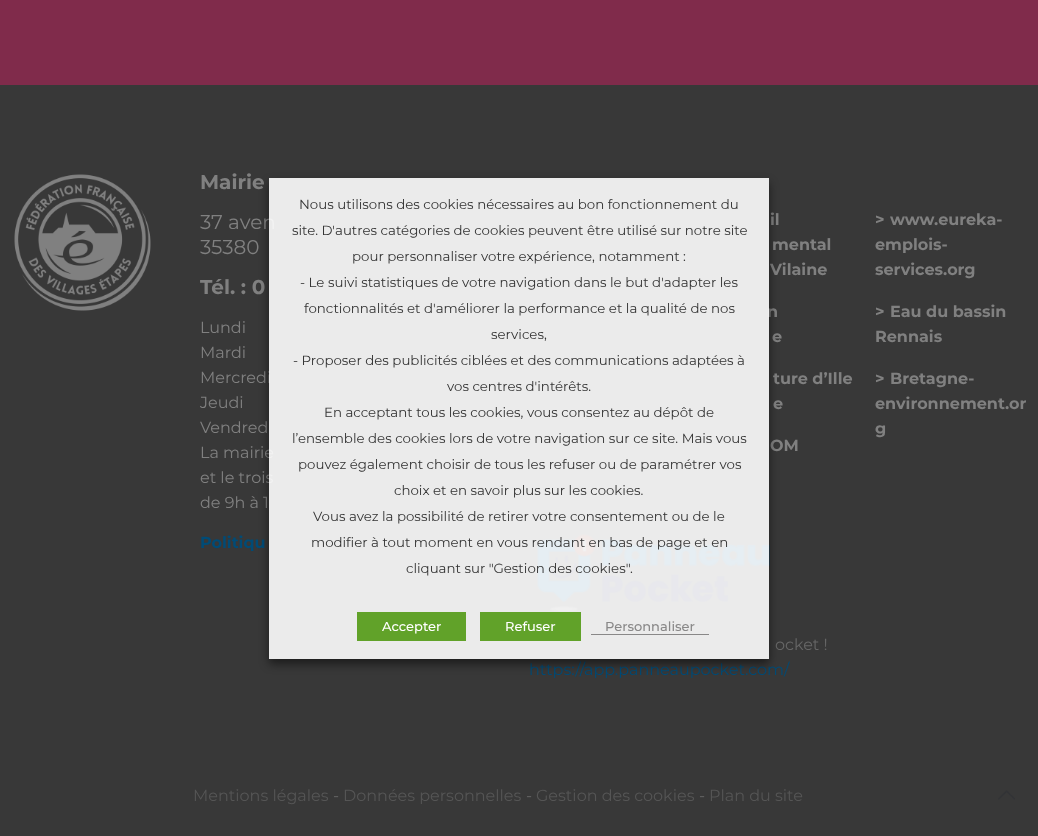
(async () => {
const canvas = document.querySelector("canvas")
canvas.width = 1038
canvas.height = 836
const c = canvas.getContext("2d")
c.miterLimit = 4
c.fontKerning = "normal"
function T(s,x,y){c.fillText(s,x,y)}
function R(x,y,w,h){c.fillRect(x,y,w,h)}
async function I(src,x,y,w,h){const img=new Image();img.src=src;await img.decode();c.drawImage(img,x,y,w,h)}
let path
c.fillStyle="#802b4b"
R(0,0,1038,836)
c.fillStyle="#383838"
R(0,85,1038,751)
await I("1.png",14,174,137,137)
c.font="bold 20px Montserrat"
c.fillStyle="#808080"
T("Mairie",200,189)
c.font="20px Montserrat"
T("37 aven",200,229)
T("35380",200,254)
c.font="bold 20px Montserrat"
T("Tél. : 0",200,294)
c.font="16px Montserrat"
T("Lundi",200,333)
T("Mardi",200,358)
T("Mercredi",200,383)
T("Jeudi",200,408)
T("Vendred",200,433)
T("La mairie",200,458)
T("et le trois",200,483)
T("de 9h à 1",200,508)
c.font="bold 16px Montserrat"
c.fillStyle="#004b76"
T("Politiqu",200,548)
c.fillStyle="#808080"
T("il",770,225)
T("mental",772,250)
T("Vilaine",770,275)
T(">",875,225)
T("www.eureka-",890,225)
T("emplois-",875,250)
T("services.org",875,275)
T("n",767,317)
T("e",772,342)
T(">",875,317)
T("Eau du bassin",890,317)
T("Rennais",875,342)
T("ture d’Ille",773,384)
T("e",773,409)
T(">",875,384)
T("Bretagne-",890,384)
T("environnement.or",875,409)
T("g",875,434)
T("OM",770,451)
await I("2.png",537,534,233,78)
c.font="16px Montserrat"
c.fillStyle="#666"
T("ocket !",775,650)
c.fillStyle="#004b76"
T("https://app.panneaupocket.com/",529,675)
c.fillStyle="#555"
T("Mentions légales",193,801)
c.fillStyle="#666"
T("-",333,801)
c.fillStyle="#555"
T("Données personnelles",343,801)
c.fillStyle="#666"
T("-",526,801)
c.fillStyle="#555"
T("Gestion des cookies",536,801)
c.fillStyle="#666"
T("-",699,801)
c.fillStyle="#555"
T("Plan du site",709,801)
await I("3.png",998,790,17,10)
c.save()
path = new Path2D("M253 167h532v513h-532zm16 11h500v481h-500z")
c.clip(path,"evenodd")
c.fillStyle="#00000080"
c.filter="blur(5px)"
c.beginPath()
c.rect(269,183,500,481)
c.fill()
c.filter="none"
c.restore()
c.fillStyle="#ffffffe6"
R(269,178,500,481)
c.font="13.35px Montserrat"
c.fillStyle="#333"
T("Nous utilisons des cookies nécessaires au bon fonctionnement du",299,209)
T("site. D'autres catégories de cookies peuvent être utilisé sur notre site",292,235)
T("pour personnaliser votre expérience, notamment :",352,261)
T("- Le suivi statistiques de votre navigation dans le but d'adapter les",300,287)
T("fonctionnalités et d'améliorer la performance et la qualité de nos",304,313)
T("services,",491,339)
T("- Proposer des publicités ciblées et des communications adaptées à",293,365)
T("vos centres d'intérêts.",447,391)
T("En acceptant tous les cookies, vous consentez au dépôt de",324,417)
T("l’ensemble des cookies lors de votre navigation sur ce site. Mais vous",292,443)
T("pouvez également choisir de tous les refuser ou de paramétrer vos",298,469)
T("choix et en savoir plus sur les cookies.",394,495)
T("Vous avez la possibilité de retirer votre consentement ou de le",313,521)
T("modifier à tout moment en vous rendant en bas de page et en",311,547)
T("cliquant sur \"Gestion des cookies\".",406,573)
c.fillStyle="#61a229"
R(357,612,109,29)
c.font="500 13px Montserrat"
c.fillStyle="#fff"
T("Accepter",382,631)
c.fillStyle="#61a229"
R(480,612,101,29)
c.fillStyle="#fff"
T("Refuser",505,631)
c.fillStyle="#898888"
R(591,634,118,1)
T("Personnaliser",605,631)
})()
